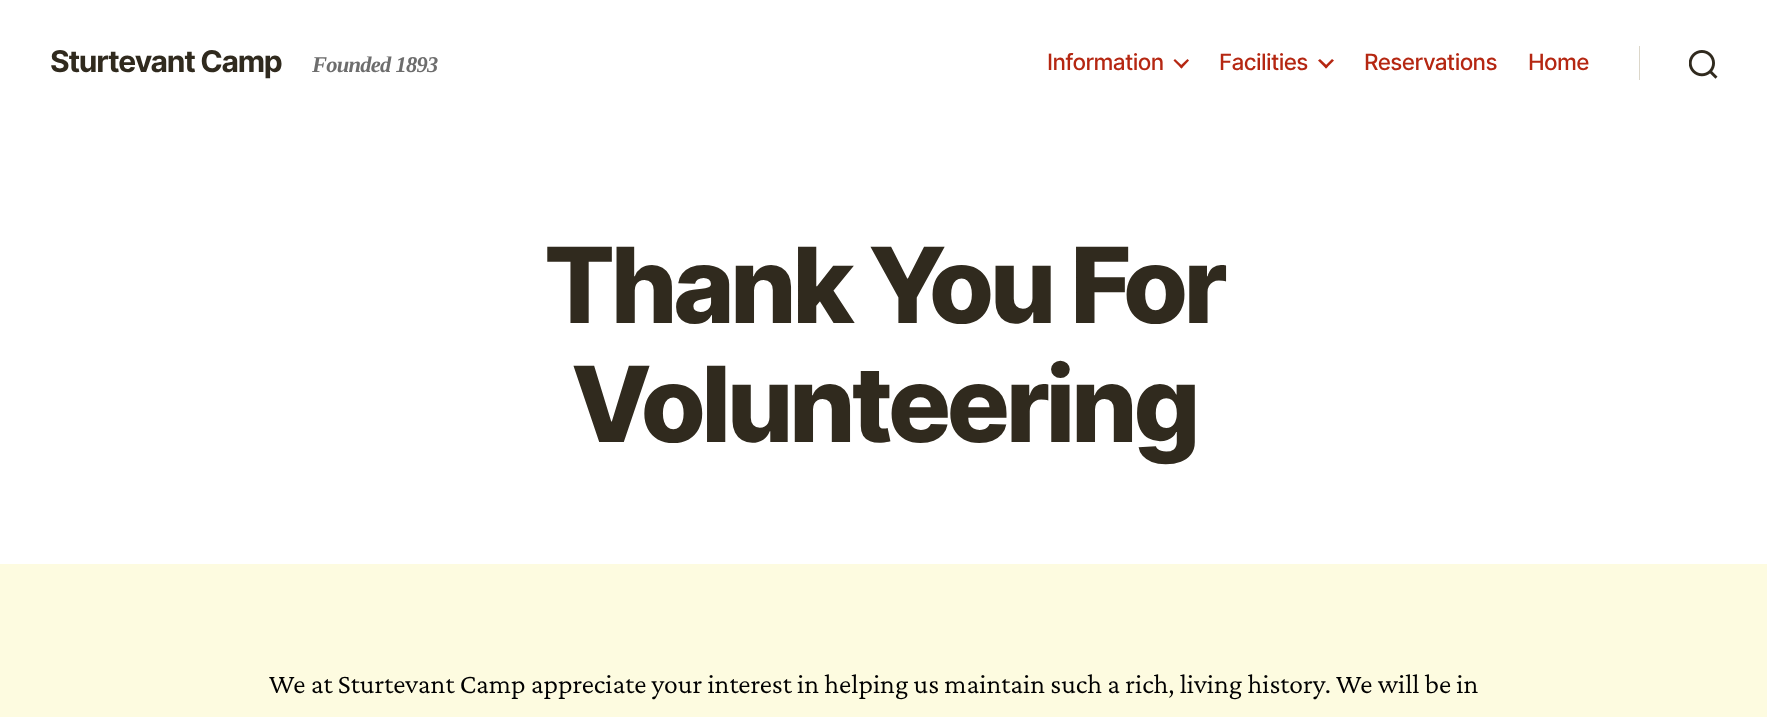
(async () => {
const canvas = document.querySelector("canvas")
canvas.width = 1767
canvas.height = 717
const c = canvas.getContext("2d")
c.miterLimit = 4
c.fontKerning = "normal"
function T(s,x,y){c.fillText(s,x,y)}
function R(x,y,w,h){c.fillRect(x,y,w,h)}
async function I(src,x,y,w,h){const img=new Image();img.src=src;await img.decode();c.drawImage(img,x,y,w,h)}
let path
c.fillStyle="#fdfbe0"
R(0,0,1767,717)
c.fillStyle="#fff"
R(0,0,1767,564)
c.letterSpacing="-1.25px"
c.font="bold 30px Inter"
c.fillStyle="#302a1e"
T("Sturtevant Camp",50,72)
c.letterSpacing="-0.75px"
c.font="italic bold 22.5px Liberation Serif"
c.fillStyle="#6d6d6d"
T("Founded 1893",312,72)
c.letterSpacing="-0.6px"
c.font="500 22.5px Inter"
c.fillStyle="#b52712"
T("Information",1047,70)
path = new Path2D("M1173.5 60.5l1.5-1.5l8 7.5l-1.5 2z")
c.fill(path)
path = new Path2D("M1179.5 66.5l8-7.5l1.5 1.5l-7.5 8z")
c.fill(path)
T("Facilities",1219,70)
path = new Path2D("M1318 60.5l2-1.5l8 7.5l-2 2z")
c.fill(path)
path = new Path2D("M1324.5 66.5l7.5-7.5l2 1.5l-8 8z")
c.fill(path)
T("Reservations",1364,70)
T("Home",1528,70)
c.fillStyle="#dcd7ca"
R(1639,46,1,34)
await I("1.png",1689,50,29,29)
c.letterSpacing="-4.4px"
c.font="800 105px Inter"
c.fillStyle="#302a1e"
T("Thank You For",544,323)
T("Volunteering",571,442)
c.letterSpacing="0px"
c.font="27.8px Crimson Pro"
c.fillStyle="#000"
T("We at Sturtevant Camp appreciate your interest in helping us maintain such a rich, living history. We will be in",269,693)
})()
